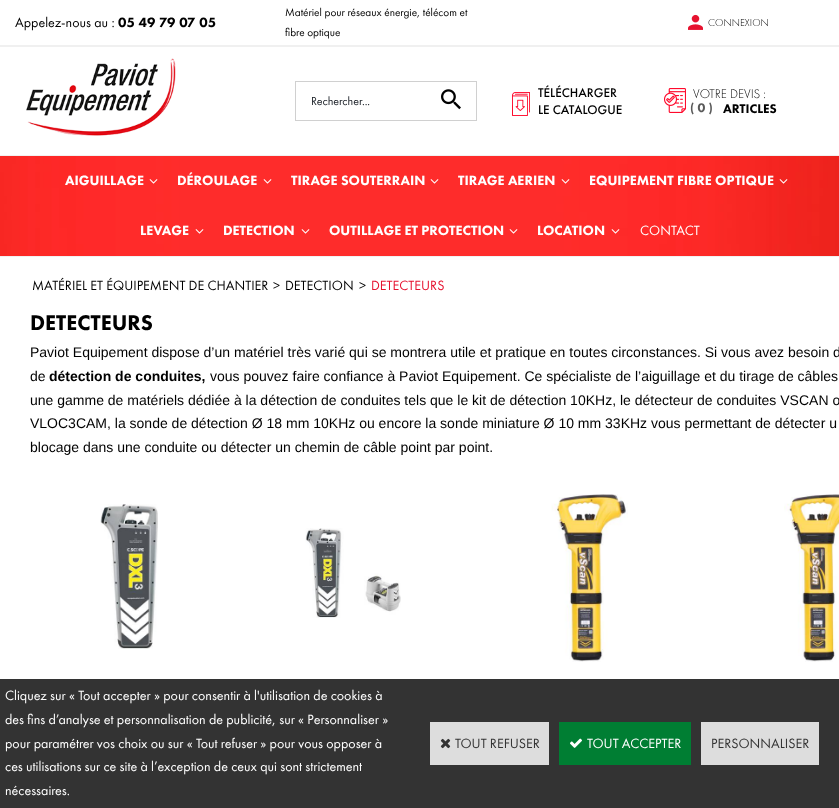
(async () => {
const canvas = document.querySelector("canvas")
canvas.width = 839
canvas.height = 808
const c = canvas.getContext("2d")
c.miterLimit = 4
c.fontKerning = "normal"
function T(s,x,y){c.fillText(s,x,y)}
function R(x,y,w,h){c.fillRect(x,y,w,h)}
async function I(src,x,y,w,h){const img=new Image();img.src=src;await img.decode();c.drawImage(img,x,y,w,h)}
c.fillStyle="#fff"
R(0,0,839,808)
c.fillStyle="#f0f0f0"
R(0,45,839,2)
c.font="14px Futura PT"
c.fillStyle="#000"
T("Appelez-nous au :",15,27)
c.wordSpacing="0.5px"
c.font="900 14px Futura PT"
T("05 49 79 07 05",118,27)
c.wordSpacing="0px"
c.font="11.25px Futura PT"
T("Matériel pour réseaux énergie, télécom et",285,16)
T("fibre optique",285,36)
await I("1.png",688,14,15,16)
c.font="300 10.5px Futura PT"
T("CONNEXION",708,26)
await I("2.png",26,58,150,78)
c.fillStyle="#d0d0d0"
R(295,81,182,1)
R(295,120,131,1)
R(295,81,1,40)
c.font="12px Futura PT"
c.fillStyle="#1a1f26"
T("Rechercher...",311,105)
c.fillStyle="#d0d0d0"
R(476,81,1,40)
R(426,120,51,1)
await I("3.png",441,89,20,21)
await I("4.png",512,92,18,24)
c.font="500 13px Futura PT"
c.fillStyle="#000"
T("TÉLÉCHARGER",538,97)
T("LE CATALOGUE",538,114)
await I("5.png",664,88,22,25)
c.font="300 13px Futura PT"
T("VOTRE DEVIS :",693,98)
c.font="900 13px Futura PT"
c.fillStyle="#5a5a5a"
T("( 0 )",690,112)
c.fillStyle="#000"
T("ARTICLES",723,113)
await I("6.png",0,156,839,100)
c.fillStyle="#f1f1f1"
R(0,155,839,1)
R(0,256,839,1)
c.font="900 14px Futura PT"
c.fillStyle="#fff"
T("AIGUILLAGE",65,185)
await I("7.png",149,179,9,5)
T("DÉROULAGE",177,185)
await I("8.png",263,179,9,5)
T("TIRAGE SOUTERRAIN",291,185)
await I("8.png",430,179,9,5)
T("TIRAGE AERIEN",458,185)
await I("9.png",561,179,9,5)
T("EQUIPEMENT FIBRE OPTIQUE",589,185)
await I("10.png",779,179,9,5)
T("LEVAGE",140,235)
await I("8.png",195,229,9,5)
T("DETECTION",223,235)
await I("8.png",301,229,9,5)
T("OUTILLAGE ET PROTECTION",329,235)
await I("8.png",509,229,9,5)
T("LOCATION",537,235)
await I("11.png",611,229,9,5)
c.font="14px Futura PT"
T("CONTACT",640,235)
c.fillStyle="#000"
T("MATÉRIEL ET ÉQUIPEMENT DE CHANTIER",32,290)
T(">",273,290)
T("DETECTION",285,290)
T(">",359,290)
c.fillStyle="#e6122f"
T("DETECTEURS",371,290)
c.font="900 22px Futura PT"
c.fillStyle="#000"
T("DETECTEURS",30,330)
c.font="14px Liberation Sans"
T("Paviot Equipement dispose d’un matériel très varié qui se montrera utile et pratique en toutes circonstances. Si vous avez besoin d",30,357)
T("de",30,381)
c.font="bold 14px Liberation Sans"
T("détection de conduites,",49,381)
c.font="14px Liberation Sans"
T("vous pouvez faire confiance à Paviot Equipement. Ce spécialiste de l’aiguillage et du tirage de câbles",210,381)
T("une gamme de matériels dédiée à la détection de conduites tels que le kit de détection 10KHz, le détecteur de conduites VSCAN o",30,405)
T("VLOC3CAM, la sonde de détection Ø 18 mm 10KHz ou encore la sonde miniature Ø 10 mm 33KHz vous permettant de détecter u",30,428)
T("blocage dans une conduite ou détecter un chemin de câble point par point.",30,452)
await I("12.png",100,504,58,145)
await I("13.png",305,528,96,90)
await I("14.png",551,494,77,168)
await I("15.png",784,494,55,168)
c.fillStyle="#333"
R(0,679,839,129)
c.font="14px Futura PT"
c.fillStyle="#fff"
T("Cliquez sur « Tout accepter » pour consentir à l'utilisation de cookies à",5,700)
T("des fins d’analyse et personnalisation de publicité, sur « Personnaliser »",5,724)
T("pour paramétrer vos choix ou sur « Tout refuser » pour vous opposer à",5,748)
T("ces utilisations sur ce site à l’exception de ceux qui sont strictement",5,771)
T("nécessaires.",5,795)
c.fillStyle="#ddd"
R(430,722,119,43)
await I("16.png",440,738,11,11)
c.fillStyle="#333"
T("TOUT REFUSER",455,748)
c.fillStyle="#007e33"
R(559,722,132,43)
await I("17.png",570,738,12,10)
c.fillStyle="#fff"
T("TOUT ACCEPTER",587,748)
c.fillStyle="#ddd"
R(701,722,118,43)
c.fillStyle="#333"
T("PERSONNALISER",711,748)
})()
